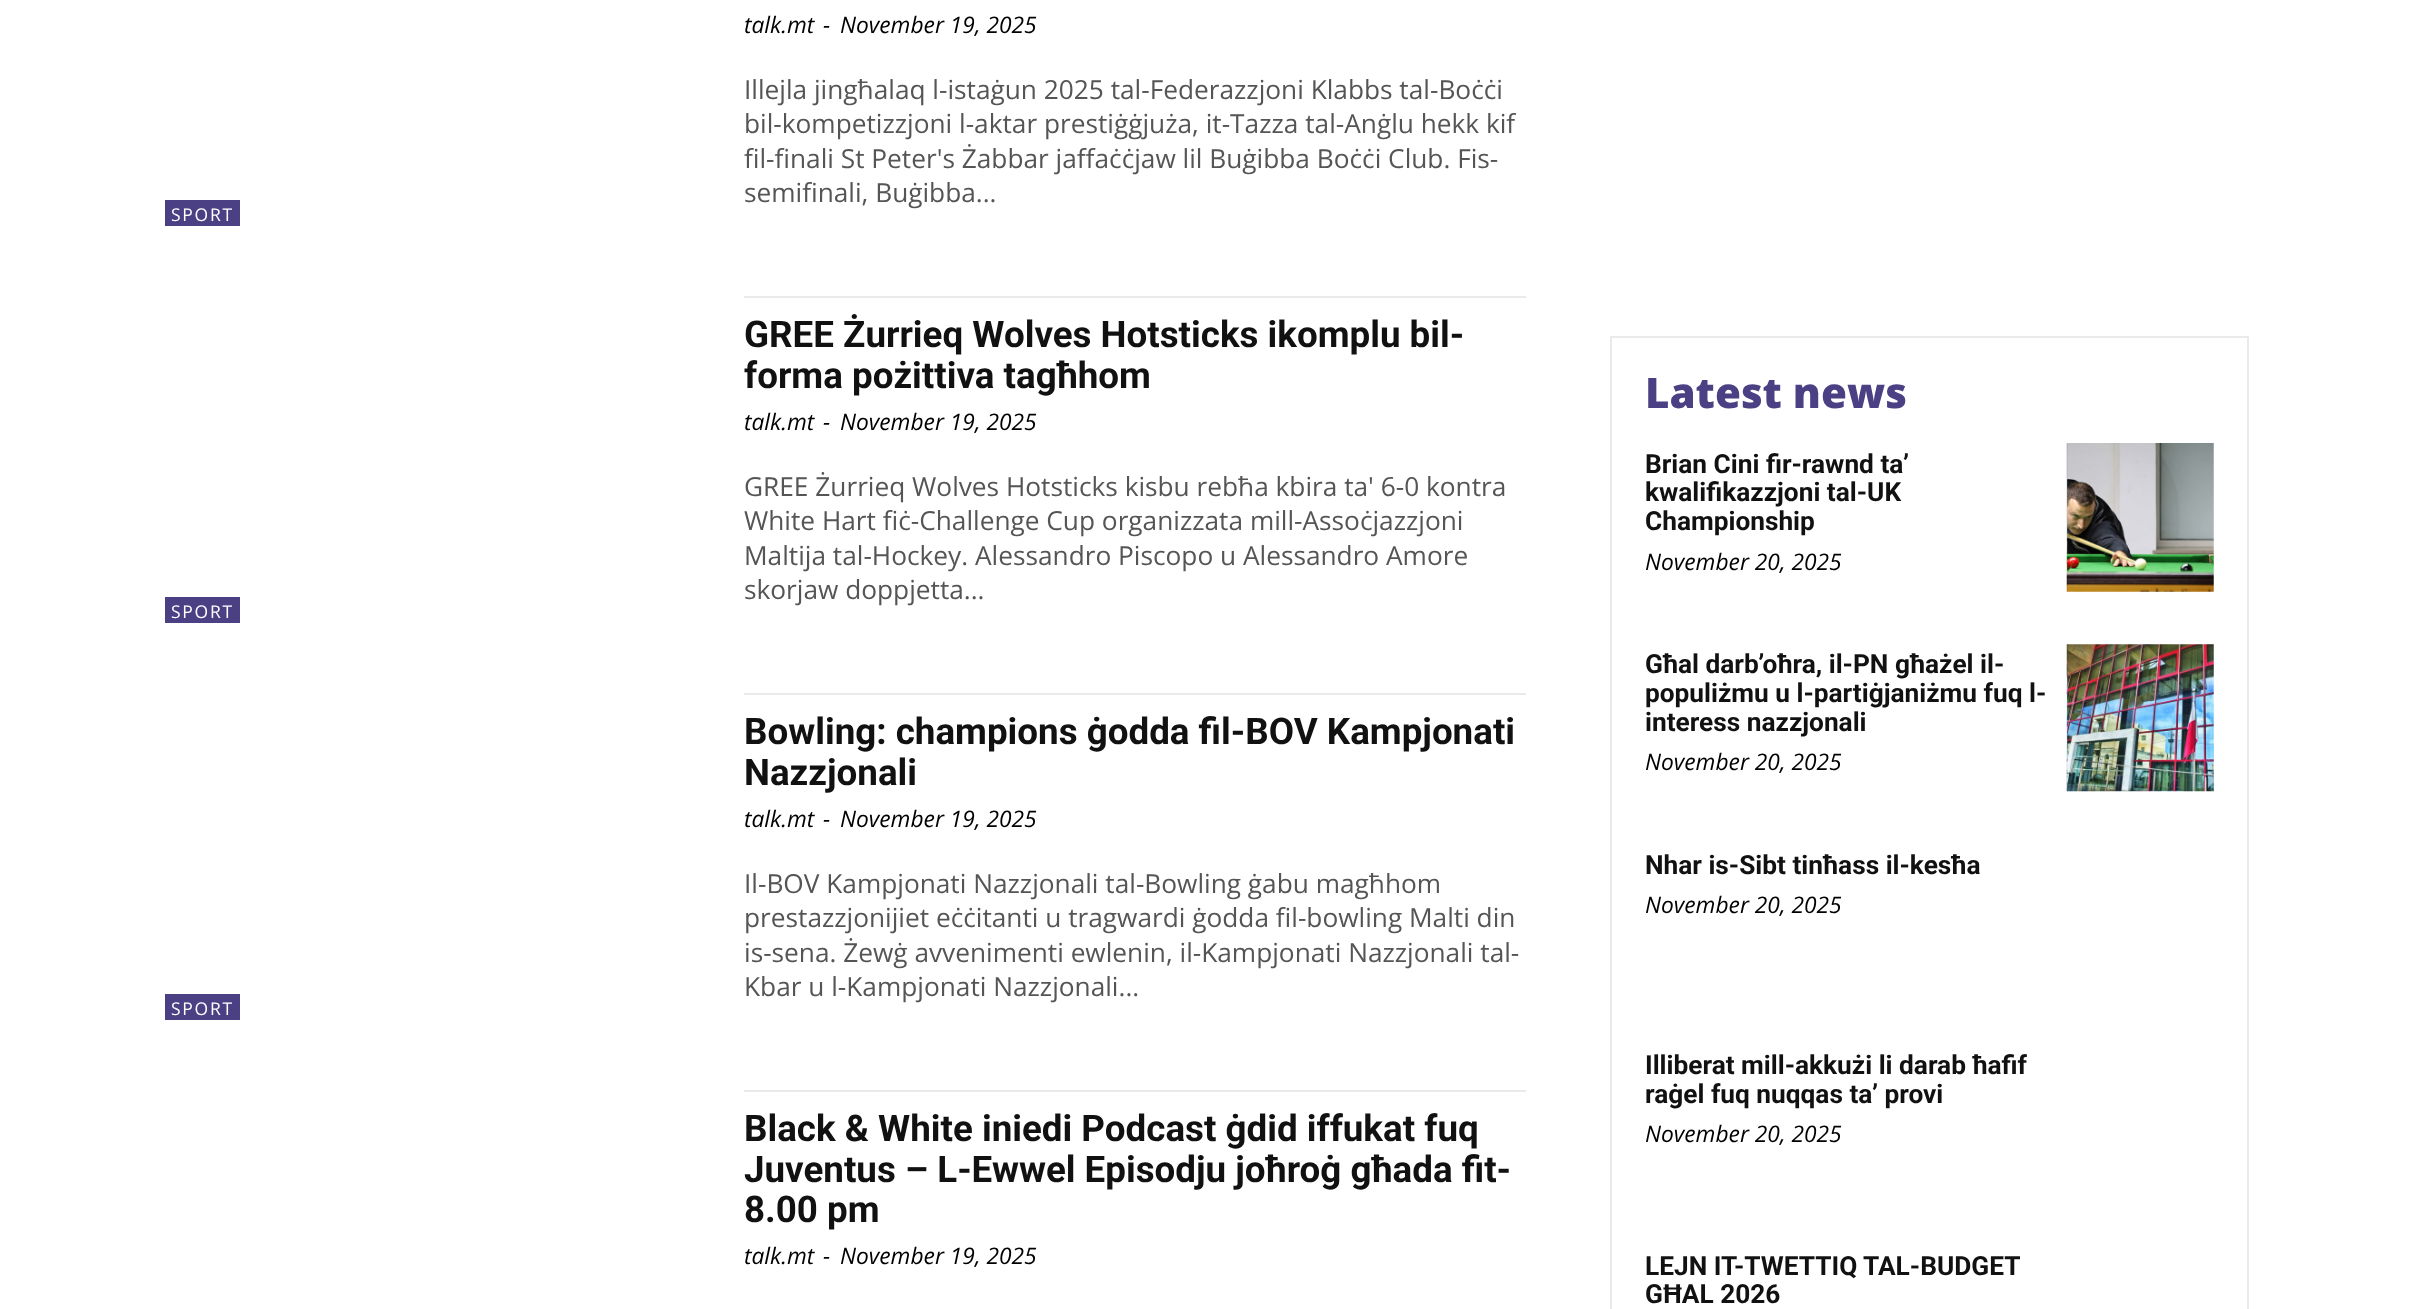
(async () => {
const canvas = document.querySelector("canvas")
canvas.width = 2412
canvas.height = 1309
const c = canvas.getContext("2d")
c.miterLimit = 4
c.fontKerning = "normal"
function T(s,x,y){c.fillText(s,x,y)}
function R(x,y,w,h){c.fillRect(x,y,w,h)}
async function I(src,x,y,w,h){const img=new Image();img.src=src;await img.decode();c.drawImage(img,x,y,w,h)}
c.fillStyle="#fff"
R(0,0,2412,1309)
c.font="italic 22.75px Open Sans"
c.fillStyle="#000"
T("talk.mt",744,33)
T("-",823,33)
T("November 19, 2025",840,33)
c.font="26.25px Open Sans"
c.fillStyle="#555"
T("Illejla jingħalaq l-istaġun 2025 tal-Federazzjoni Klabbs tal-Boċċi",744,99)
T("bil-kompetizzjoni l-aktar prestiġġjuża, it-Tazza tal-Anġlu hekk kif",744,133)
T("fil-finali St Peter's Żabbar jaffaċċjaw lil Buġibba Boċċi Club. Fis-",744,168)
T("semifinali, Buġibba...",744,202)
c.fillStyle="#4c4084"
R(165,200,75,26)
c.letterSpacing="1.75px"
c.font="17.5px Open Sans"
c.fillStyle="#fff"
T("SPORT",171,221)
c.fillStyle="#eaeaea"
R(744,296,782,2)
c.letterSpacing="0px"
c.font="bold 36.75px Roboto"
c.fillStyle="#111"
T("GREE Żurrieq Wolves Hotsticks ikomplu bil-",744,347)
T("forma pożittiva tagħhom",744,388)
c.font="italic 22.75px Open Sans"
c.fillStyle="#000"
T("talk.mt",744,430)
T("-",823,430)
T("November 19, 2025",840,430)
c.font="26.25px Open Sans"
c.fillStyle="#555"
T("GREE Żurrieq Wolves Hotsticks kisbu rebħa kbira ta' 6-0 kontra",744,496)
T("White Hart fiċ-Challenge Cup organizzata mill-Assoċjazzjoni",744,530)
T("Maltija tal-Hockey. Alessandro Piscopo u Alessandro Amore",744,565)
T("skorjaw doppjetta...",744,599)
c.fillStyle="#4c4084"
R(165,597,75,26)
c.letterSpacing="1.75px"
c.font="17.5px Open Sans"
c.fillStyle="#fff"
T("SPORT",171,618)
c.fillStyle="#eaeaea"
R(744,693,782,2)
c.letterSpacing="0px"
c.font="bold 36.75px Roboto"
c.fillStyle="#111"
T("Bowling: champions ġodda fil-BOV Kampjonati",744,744)
T("Nazzjonali",744,785)
c.font="italic 22.75px Open Sans"
c.fillStyle="#000"
T("talk.mt",744,827)
T("-",823,827)
T("November 19, 2025",840,827)
c.font="26.25px Open Sans"
c.fillStyle="#555"
T("Il-BOV Kampjonati Nazzjonali tal-Bowling ġabu magħhom",744,893)
T("prestazzjonijiet eċċitanti u tragwardi ġodda fil-bowling Malti din",744,927)
T("is-sena. Żewġ avvenimenti ewlenin, il-Kampjonati Nazzjonali tal-",744,962)
T("Kbar u l-Kampjonati Nazzjonali...",744,996)
c.fillStyle="#4c4084"
R(165,994,75,26)
c.letterSpacing="1.75px"
c.font="17.5px Open Sans"
c.fillStyle="#fff"
T("SPORT",171,1015)
c.fillStyle="#eaeaea"
R(744,1090,782,2)
c.letterSpacing="0px"
c.font="bold 36.75px Roboto"
c.fillStyle="#111"
T("Black & White iniedi Podcast ġdid iffukat fuq",744,1141)
T("Juventus – L-Ewwel Episodju joħroġ għada fit-",744,1182)
T("8.00 pm",744,1222)
c.font="italic 22.75px Open Sans"
c.fillStyle="#000"
T("talk.mt",744,1264)
T("-",823,1264)
T("November 19, 2025",840,1264)
c.strokeStyle="#eaeaea"
c.lineWidth=2
c.strokeRect(1611,337,637,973)
c.font="800 42px Open Sans"
c.fillStyle="#4c4084"
T("Latest news",1645,408)
c.font="bold 26.25px Roboto"
c.fillStyle="#111"
T("Brian Cini fir-rawnd ta’",1645,473)
T("kwalifikazzjoni tal-UK",1645,501)
T("Championship",1645,530)
c.font="italic 22.75px Open Sans"
c.fillStyle="#000"
T("November 20, 2025",1645,570)
await I("1.png",2066,443,148,149)
c.font="bold 26.25px Roboto"
c.fillStyle="#111"
T("Għal darb’oħra, il-PN għażel il-",1645,673)
T("populiżmu u l-partiġjaniżmu fuq l-",1645,702)
T("interess nazzjonali",1645,731)
c.font="italic 22.75px Open Sans"
c.fillStyle="#000"
T("November 20, 2025",1645,770)
await I("2.png",2066,644,148,148)
c.font="bold 26.25px Roboto"
c.fillStyle="#111"
T("Nhar is-Sibt tinħass il-kesħa",1645,874)
c.font="italic 22.75px Open Sans"
c.fillStyle="#000"
T("November 20, 2025",1645,913)
c.font="bold 26.25px Roboto"
c.fillStyle="#111"
T("Illiberat mill-akkużi li darab ħafif",1645,1074)
T("raġel fuq nuqqas ta’ provi",1645,1103)
c.font="italic 22.75px Open Sans"
c.fillStyle="#000"
T("November 20, 2025",1645,1142)
c.font="bold 26.25px Roboto"
c.fillStyle="#111"
T("LEJN IT-TWETTIQ TAL-BUDGET",1645,1275)
T("GĦAL 2026",1645,1303)
})()
